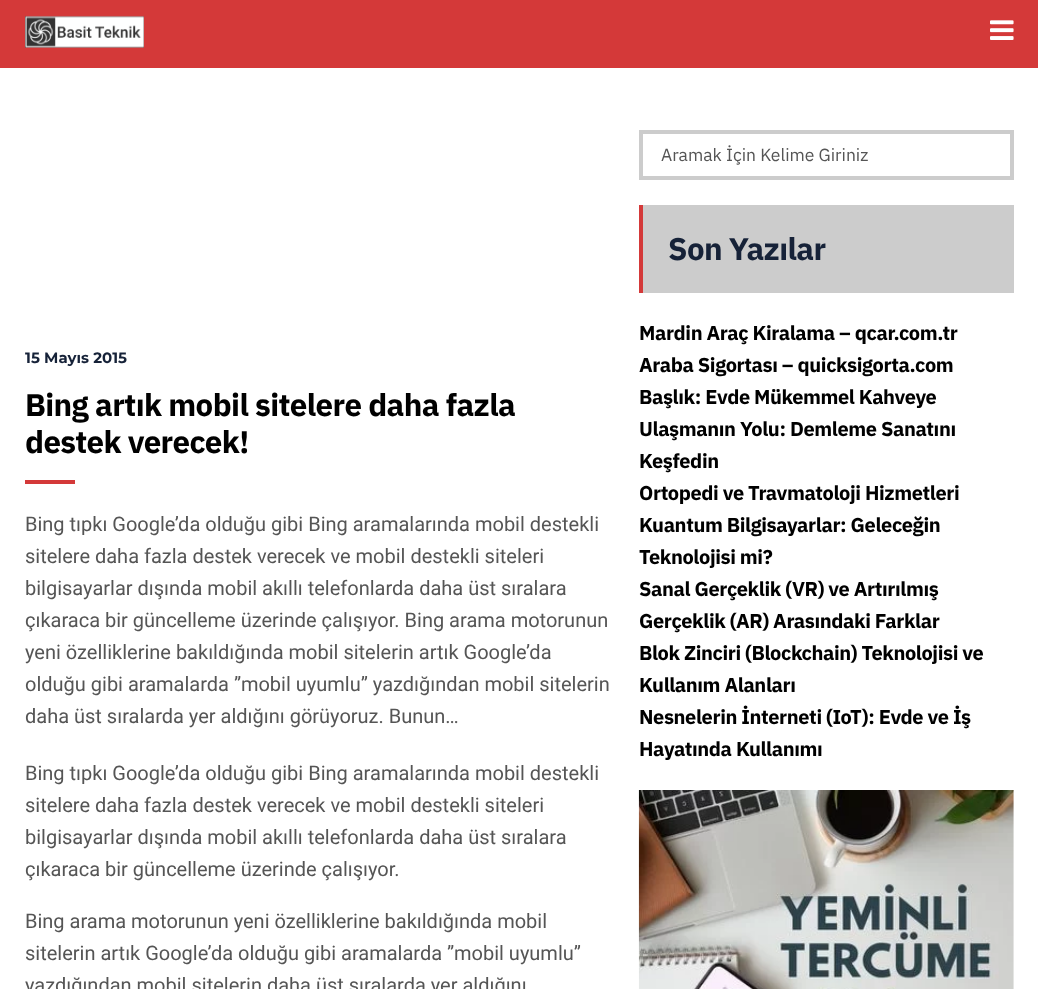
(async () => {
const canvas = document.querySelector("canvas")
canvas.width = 1038
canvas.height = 989
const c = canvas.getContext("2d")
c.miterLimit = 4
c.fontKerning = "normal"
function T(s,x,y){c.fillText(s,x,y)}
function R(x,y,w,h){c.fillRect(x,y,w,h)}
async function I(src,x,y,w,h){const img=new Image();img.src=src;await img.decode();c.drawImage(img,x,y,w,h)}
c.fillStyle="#fff"
R(0,0,1038,989)
c.fillStyle="#d43939"
R(0,0,1038,68)
await I("1.png",25,15,119,33)
await I("2.png",990,20,24,20)
c.font="bold 15px Montserrat"
c.fillStyle="#162238"
T("15 Mayıs 2015",25,363)
c.letterSpacing="-0.6px"
c.font="bold 31.25px IBM Plex Sans"
c.fillStyle="#000"
T("Bing artık mobil sitelere daha fazla",25,416)
T("destek verecek!",25,453)
c.fillStyle="#d43939"
R(25,480,50,4)
c.letterSpacing="0px"
c.font="20px Roboto"
c.fillStyle="#555"
T("Bing tıpkı Google’da olduğu gibi Bing aramalarında mobil destekli",25,531)
T("sitelere daha fazla destek verecek ve mobil destekli siteleri",25,563)
T("bilgisayarlar dışında mobil akıllı telefonlarda daha üst sıralara",25,595)
T("çıkaraca bir güncelleme üzerinde çalışıyor. Bing arama motorunun",25,627)
T("yeni özelliklerine bakıldığında mobil sitelerin artık Google’da",25,659)
T("olduğu gibi aramalarda ”mobil uyumlu” yazdığından mobil sitelerin",25,691)
T("daha üst sıralarda yer aldığını görüyoruz. Bunun…",25,723)
T("Bing tıpkı Google’da olduğu gibi Bing aramalarında mobil destekli",25,780)
T("sitelere daha fazla destek verecek ve mobil destekli siteleri",25,812)
T("bilgisayarlar dışında mobil akıllı telefonlarda daha üst sıralara",25,844)
T("çıkaraca bir güncelleme üzerinde çalışıyor.",25,876)
T("Bing arama motorunun yeni özelliklerine bakıldığında mobil",25,928)
T("sitelerin artık Google’da olduğu gibi aramalarda ”mobil uyumlu”",25,960)
T("yazdığından mobil sitelerin daha üst sıralarda yer aldığını",25,992)
c.strokeStyle="#ccc"
c.lineWidth=4
c.strokeRect(641,132,371,46)
c.font="17.5px IBM Plex Sans"
T("Aramak İçin Kelime Giriniz",661,161)
c.fillStyle="#ccc"
R(643,205,371,88)
c.fillStyle="#d43939"
R(639,205,4,88)
c.letterSpacing="-0.6px"
c.font="bold 31.25px IBM Plex Sans"
c.fillStyle="#162238"
T("Son Yazılar",668,260)
c.letterSpacing="-0.4px"
c.font="bold 20px IBM Plex Sans"
c.fillStyle="#000"
T("Mardin Araç Kiralama – qcar.com.tr",639,340)
T("Araba Sigortası – quicksigorta.com",639,372)
T("Başlık: Evde Mükemmel Kahveye",639,404)
T("Ulaşmanın Yolu: Demleme Sanatını",639,436)
T("Keşfedin",639,468)
T("Ortopedi ve Travmatoloji Hizmetleri",639,500)
T("Kuantum Bilgisayarlar: Geleceğin",639,532)
T("Teknolojisi mi?",639,564)
T("Sanal Gerçeklik (VR) ve Artırılmış",639,596)
T("Gerçeklik (AR) Arasındaki Farklar",639,628)
T("Blok Zinciri (Blockchain) Teknolojisi ve",639,660)
T("Kullanım Alanları",639,692)
T("Nesnelerin İnterneti (IoT): Evde ve İş",639,724)
T("Hayatında Kullanımı",639,756)
await I("3.png",638,790,376,199)
})()
